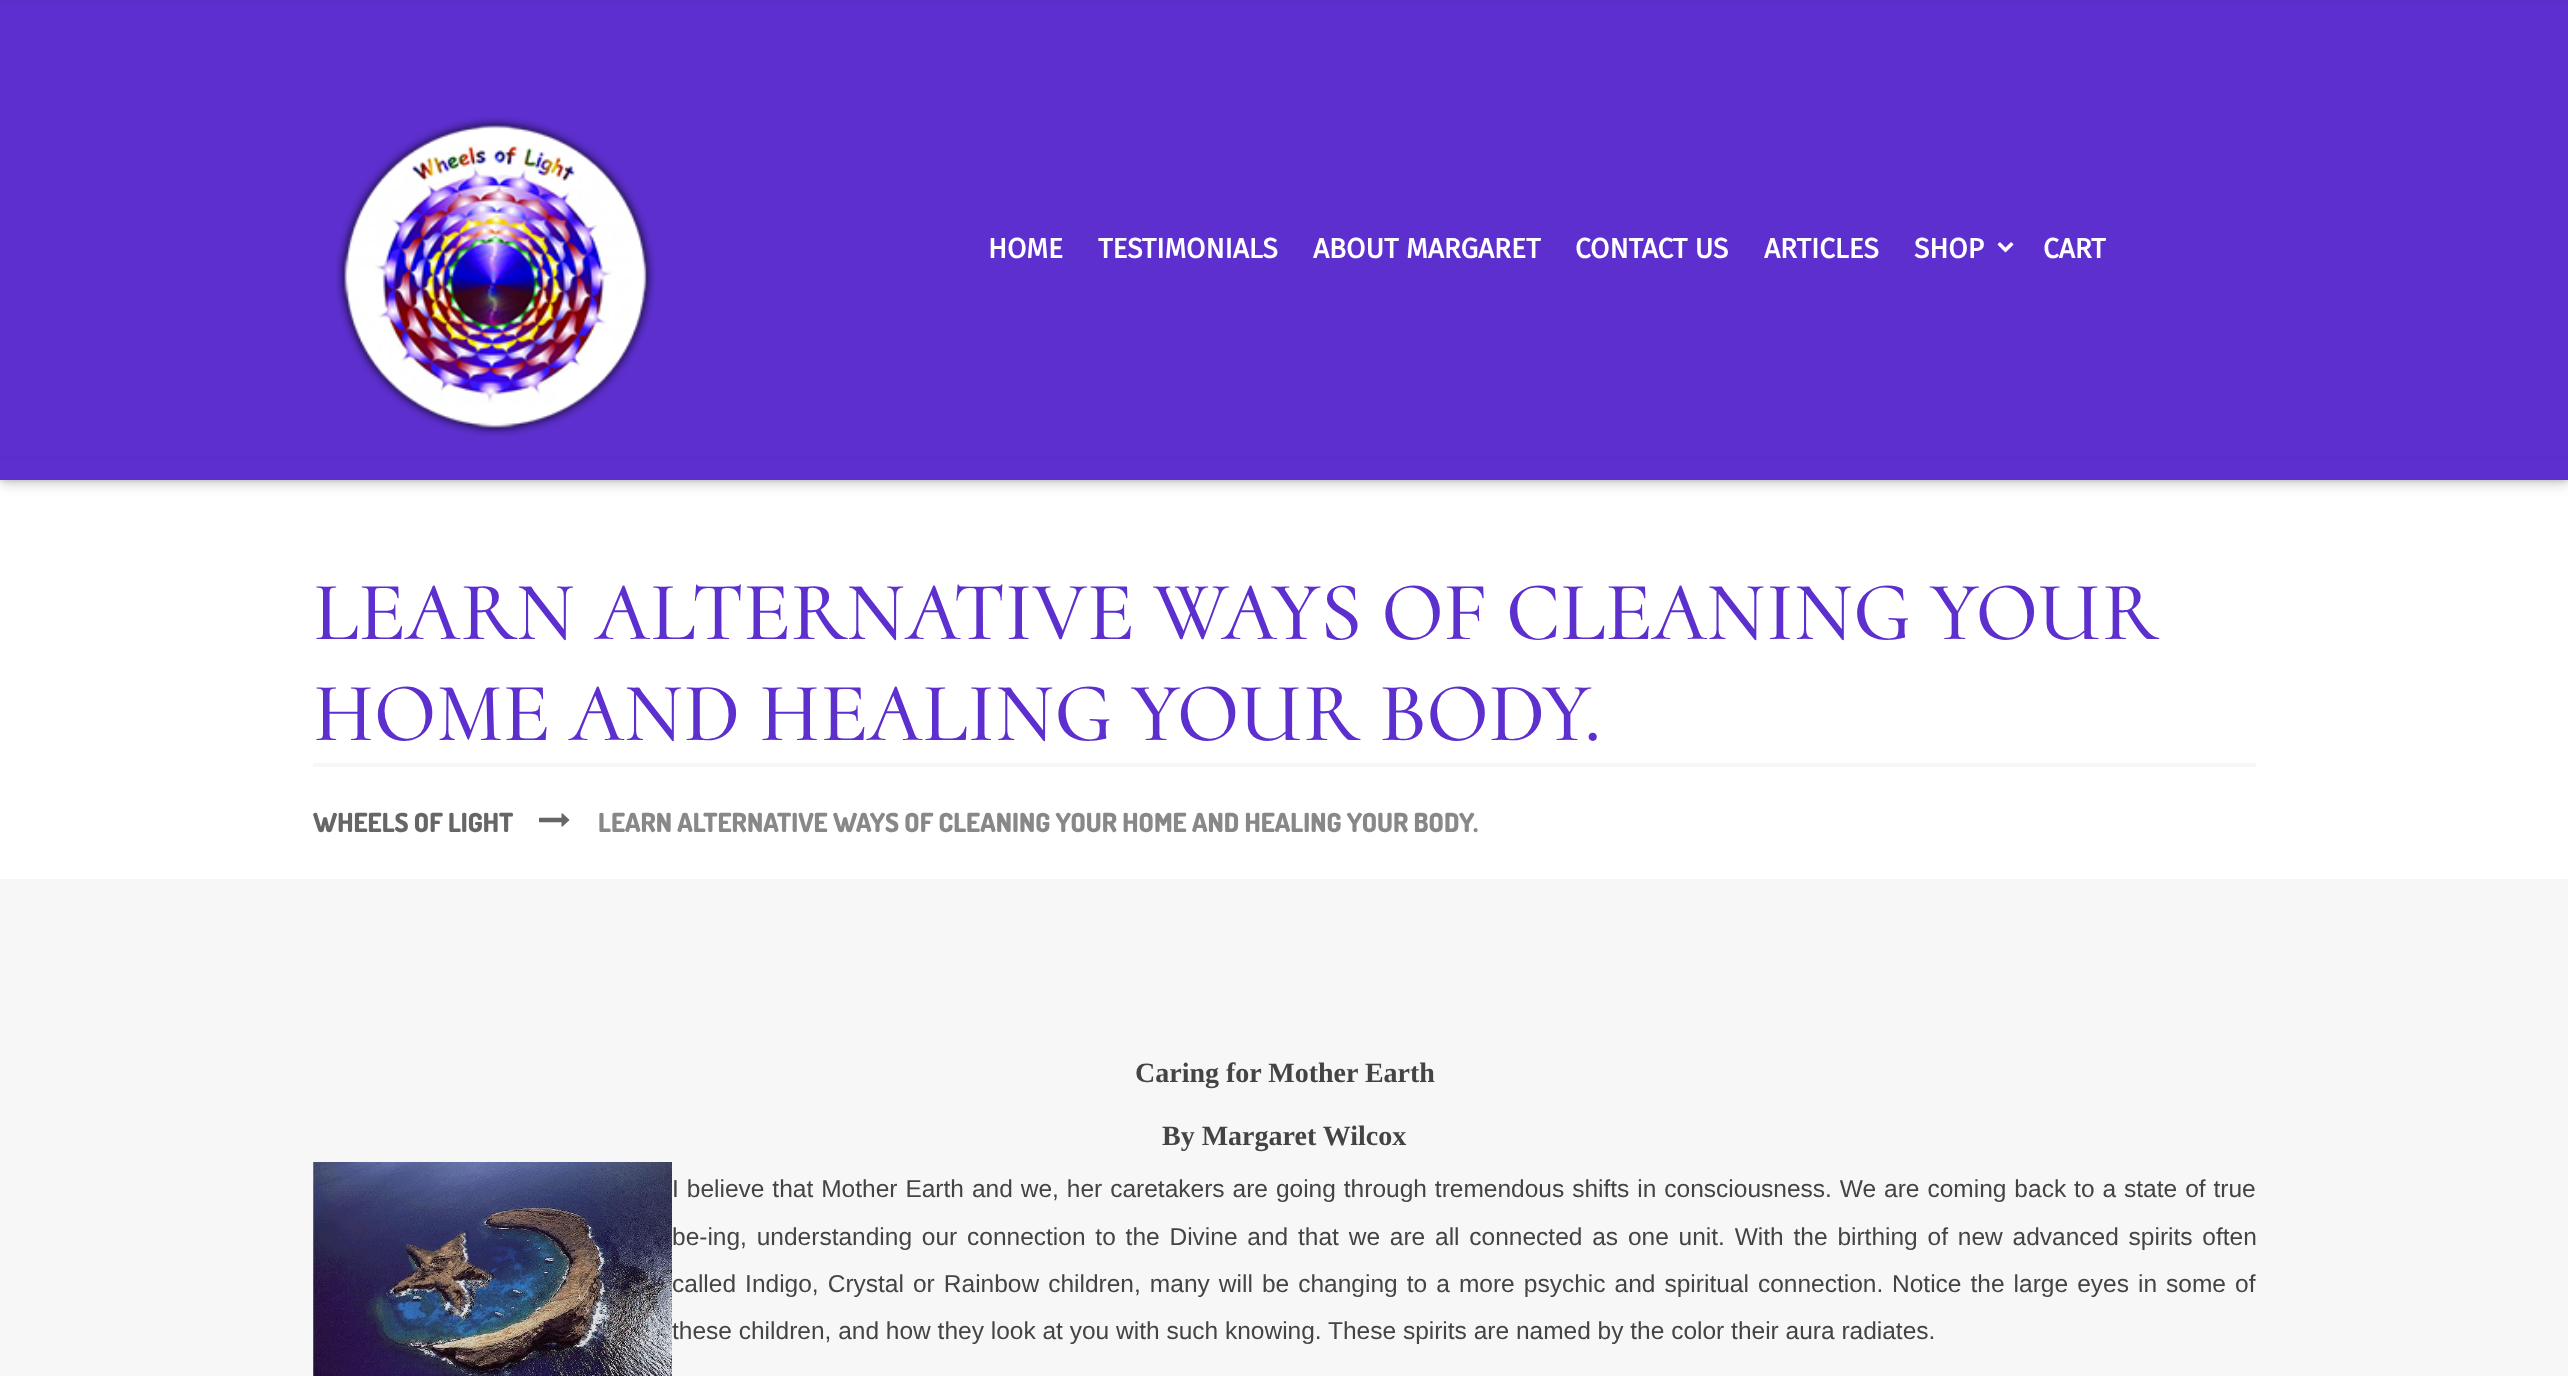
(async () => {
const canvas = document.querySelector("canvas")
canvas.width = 2568
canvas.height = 1376
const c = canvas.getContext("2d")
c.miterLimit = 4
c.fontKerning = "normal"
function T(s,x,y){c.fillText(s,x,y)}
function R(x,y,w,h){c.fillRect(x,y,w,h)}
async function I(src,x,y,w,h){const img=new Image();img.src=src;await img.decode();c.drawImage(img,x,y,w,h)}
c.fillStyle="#f7f7f7"
R(0,0,2568,1376)
c.fillStyle="#fff"
R(0,480,2568,399)
c.fillStyle="#00000026"
c.filter="blur(6px)"
c.beginPath()
c.rect(0,5,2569,480)
c.fill()
c.filter="none"
c.fillStyle="#00000059"
c.filter="blur(3.5px)"
c.beginPath()
c.rect(0,-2,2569,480)
c.fill()
c.filter="none"
c.fillStyle="#5d2fce"
R(0,4,2568,476)
c.fillStyle="#5a2ec8"
R(0,0,2568,4)
await I("1.png",336,117,319,319)
c.font="bold 28px Fira Sans"
c.fillStyle="#fff"
T("HOME",988,258)
T("TESTIMONIALS",1098,258)
T("ABOUT MARGARET",1313,258)
T("CONTACT US",1575,258)
T("ARTICLES",1764,258)
T("SHOP",1914,258)
await I("2.png",1997,242,17,11)
T("CART",2043,258)
c.fillStyle="#5a2ec8"
R(0,455,2568,4)
c.font="500 84px Cormorant Upright"
c.fillStyle="#5d2fce"
T("LEARN ALTERNATIVE WAYS OF CLEANING YOUR",313,639)
T("HOME AND HEALING YOUR BODY.",313,740)
c.fillStyle="#f7f7f7"
R(313,763,1943,4)
c.font="800 26.25px Dosis"
c.fillStyle="#666"
T("WHEELS OF LIGHT",313,832)
await I("3.png",539,813,31,14)
c.fillStyle="#888"
T("LEARN ALTERNATIVE WAYS OF CLEANING YOUR HOME AND HEALING YOUR BODY.",598,832)
c.font="bold 28px Liberation Serif"
c.fillStyle="#444"
T("Caring for Mother Earth",1135,1082)
T("By Margaret Wilcox",1162,1145)
await I("4.png",313,1162,359,214)
c.wordSpacing="1.15px"
c.font="24.5px Liberation Sans"
T("I believe that Mother Earth and we, her caretakers are going through tremendous shifts in consciousness. We are coming back to a state of true",672,1197)
c.wordSpacing="3px"
T("be-ing, understanding our connection to the Divine and that we are all connected as one unit. With the birthing of new advanced spirits often",672,1245)
c.wordSpacing="2.25px"
T("called Indigo, Crystal or Rainbow children, many will be changing to a more psychic and spiritual connection.",672,1292)
T("Notice the large eyes in some of",1892,1292)
c.wordSpacing="0px"
T("these children, and how they look at you with such knowing. These spirits are named by the color their aura radiates.",672,1339)
})()
